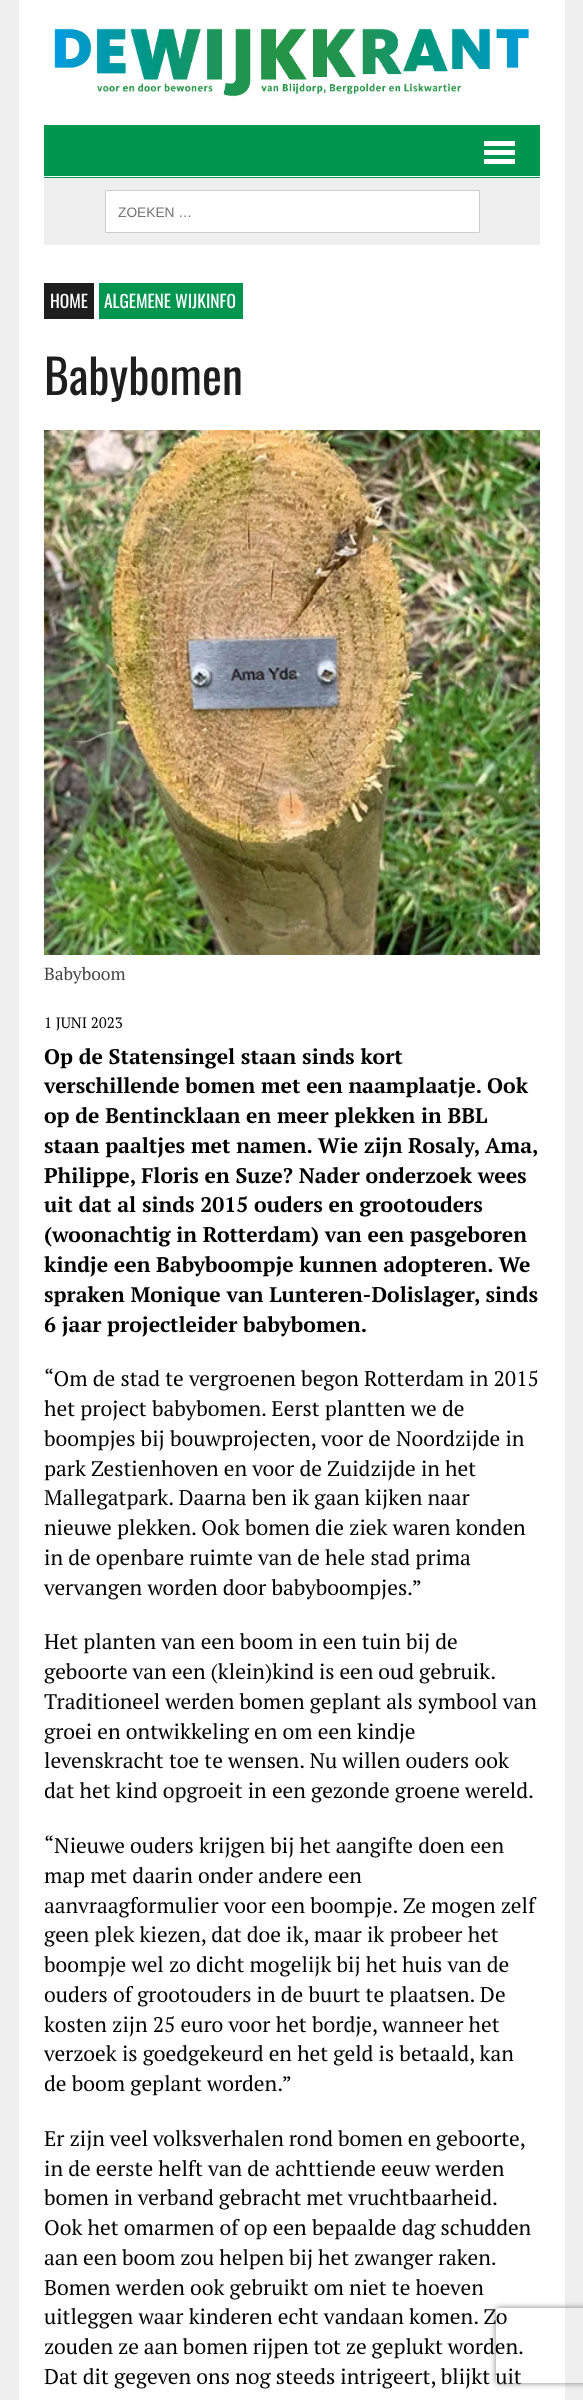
(async () => {
const canvas = document.querySelector("canvas")
canvas.width = 583
canvas.height = 2400
const c = canvas.getContext("2d")
c.miterLimit = 4
c.fontKerning = "normal"
function T(s,x,y){c.fillText(s,x,y)}
function R(x,y,w,h){c.fillRect(x,y,w,h)}
async function I(src,x,y,w,h){const img=new Image();img.src=src;await img.decode();c.drawImage(img,x,y,w,h)}
let path
c.fillStyle="#efefef"
R(0,0,583,2400)
c.fillStyle="#fff"
R(19,0,546,2400)
await I("1.png",54,28,475,69)
c.fillStyle="#00964f"
R(44,125,496,53)
c.fillStyle="#fff"
R(44,176,496,1)
R(484,141,31,5)
R(484,150,31,5)
R(484,159,31,5)
c.fillStyle="#efefef"
R(44,178,496,67)
c.fillStyle="#fff"
c.beginPath()
c.rect(105.5,190.5,374,42)
c.fill()
c.strokeStyle="#cdcdcd"
c.stroke()
c.font="13.75px Liberation Sans"
c.fillStyle="#757575"
T("ZOEKEN …",118,217)
c.fillStyle="#1f1e1e"
R(44,283,50,36)
c.font="17.5px Oswald"
c.fillStyle="#fff"
T("HOME",50,308)
c.fillStyle="#00964f"
R(99,283,144,36)
c.fillStyle="#fff"
T("ALGEMENE WIJKINFO",104,308)
c.font="47.5px Oswald"
c.fillStyle="#1f1e1e"
T("Babybomen",44,395)
await I("2.png",43,430,497,525)
c.font="17.5px PT Serif"
c.fillStyle="#454545"
T("Babyboom",44,980)
c.font="15px PT Serif"
c.fillStyle="#000"
T("1 JUNI 2023",44,1028)
c.font="bold 21.25px PT Serif"
T("Op de Statensingel staan sinds kort",44,1064)
T("verschillende bomen met een naamplaatje. Ook",44,1093)
T("op de Bentincklaan en meer plekken in BBL",44,1123)
T("staan paaltjes met namen. Wie zijn Rosaly, Ama,",44,1153)
T("Philippe, Floris en Suze? Nader onderzoek wees",44,1183)
T("uit dat al sinds 2015 ouders en grootouders",44,1212)
T("(woonachtig in Rotterdam) van een pasgeboren",44,1242)
T("kindje een Babyboompje kunnen adopteren. We",44,1272)
T("spraken Monique van Lunteren-Dolislager, sinds",44,1302)
T("6 jaar projectleider babybomen.",44,1332)
c.font="21.25px PT Serif"
T("“Om de stad te vergroenen begon Rotterdam in 2015",44,1386)
T("het project babybomen. Eerst plantten we de",44,1416)
T("boompjes bij bouwprojecten, voor de Noordzijde in",44,1446)
T("park Zestienhoven en voor de Zuidzijde in het",44,1476)
T("Mallegatpark. Daarna ben ik gaan kijken naar",44,1505)
T("nieuwe plekken. Ook bomen die ziek waren konden",44,1535)
T("in de openbare ruimte van de hele stad prima",44,1565)
T("vervangen worden door babyboompjes.”",44,1595)
T("Het planten van een boom in een tuin bij de",44,1649)
c.wordSpacing="-0.25px"
T("geboorte van een (klein)kind is een oud gebruik.",44,1679)
c.wordSpacing="0px"
T("Traditioneel werden bomen geplant als symbool van",44,1709)
T("groei en ontwikkeling en om een kindje",44,1739)
T("levenskracht toe te wensen. Nu willen ouders ook",44,1768)
T("dat het kind opgroeit in een gezonde groene wereld.",44,1798)
T("“Nieuwe ouders krijgen bij het aangifte doen een",44,1853)
T("map met daarin onder andere een",44,1883)
T("aanvraagformulier voor een boompje. Ze mogen zelf",44,1913)
T("geen plek kiezen, dat doe ik, maar ik probeer het",44,1942)
T("boompje wel zo dicht mogelijk bij het huis van de",44,1972)
T("ouders of grootouders in de buurt te plaatsen. De",44,2002)
T("kosten zijn 25 euro voor het bordje, wanneer het",44,2032)
T("verzoek is goedgekeurd en het geld is betaald, kan",44,2061)
T("de boom geplant worden.”",44,2091)
c.wordSpacing="-0.25px"
T("Er zijn veel volksverhalen rond bomen en geboorte,",44,2146)
c.wordSpacing="0px"
T("in de eerste helft van de achttiende eeuw werden",44,2176)
c.wordSpacing="-0.25px"
T("bomen in verband gebracht met vruchtbaarheid.",44,2205)
c.wordSpacing="0px"
T("Ook het omarmen of op een bepaalde dag schudden",44,2235)
c.wordSpacing="-0.25px"
T("aan een boom zou helpen bij het zwanger raken.",44,2265)
c.wordSpacing="0px"
T("Bomen werden ook gebruikt om niet te hoeven",44,2295)
T("uitleggen waar kinderen echt vandaan komen. Zo",44,2324)
c.wordSpacing="-0.25px"
T("zouden ze aan bomen rijpen tot ze geplukt worden.",44,2354)
c.wordSpacing="0px"
T("Dat dit gegeven ons nog steeds intrigeert, blijkt uit",44,2384)
c.save()
path = new Path2D("M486 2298h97v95h-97zm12.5 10h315c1.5 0 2.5 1 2.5 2.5v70c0 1.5-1 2.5-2.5 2.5h-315c-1.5 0-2.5-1-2.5-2.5v-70c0-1.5 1-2.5 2.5-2.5z")
c.clip(path,"evenodd")
c.fillStyle="#808080"
c.filter="blur(3px)"
c.beginPath()
c.roundRect(496,2308,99,75,2.5)
c.fill()
c.filter="none"
c.restore()
})()
